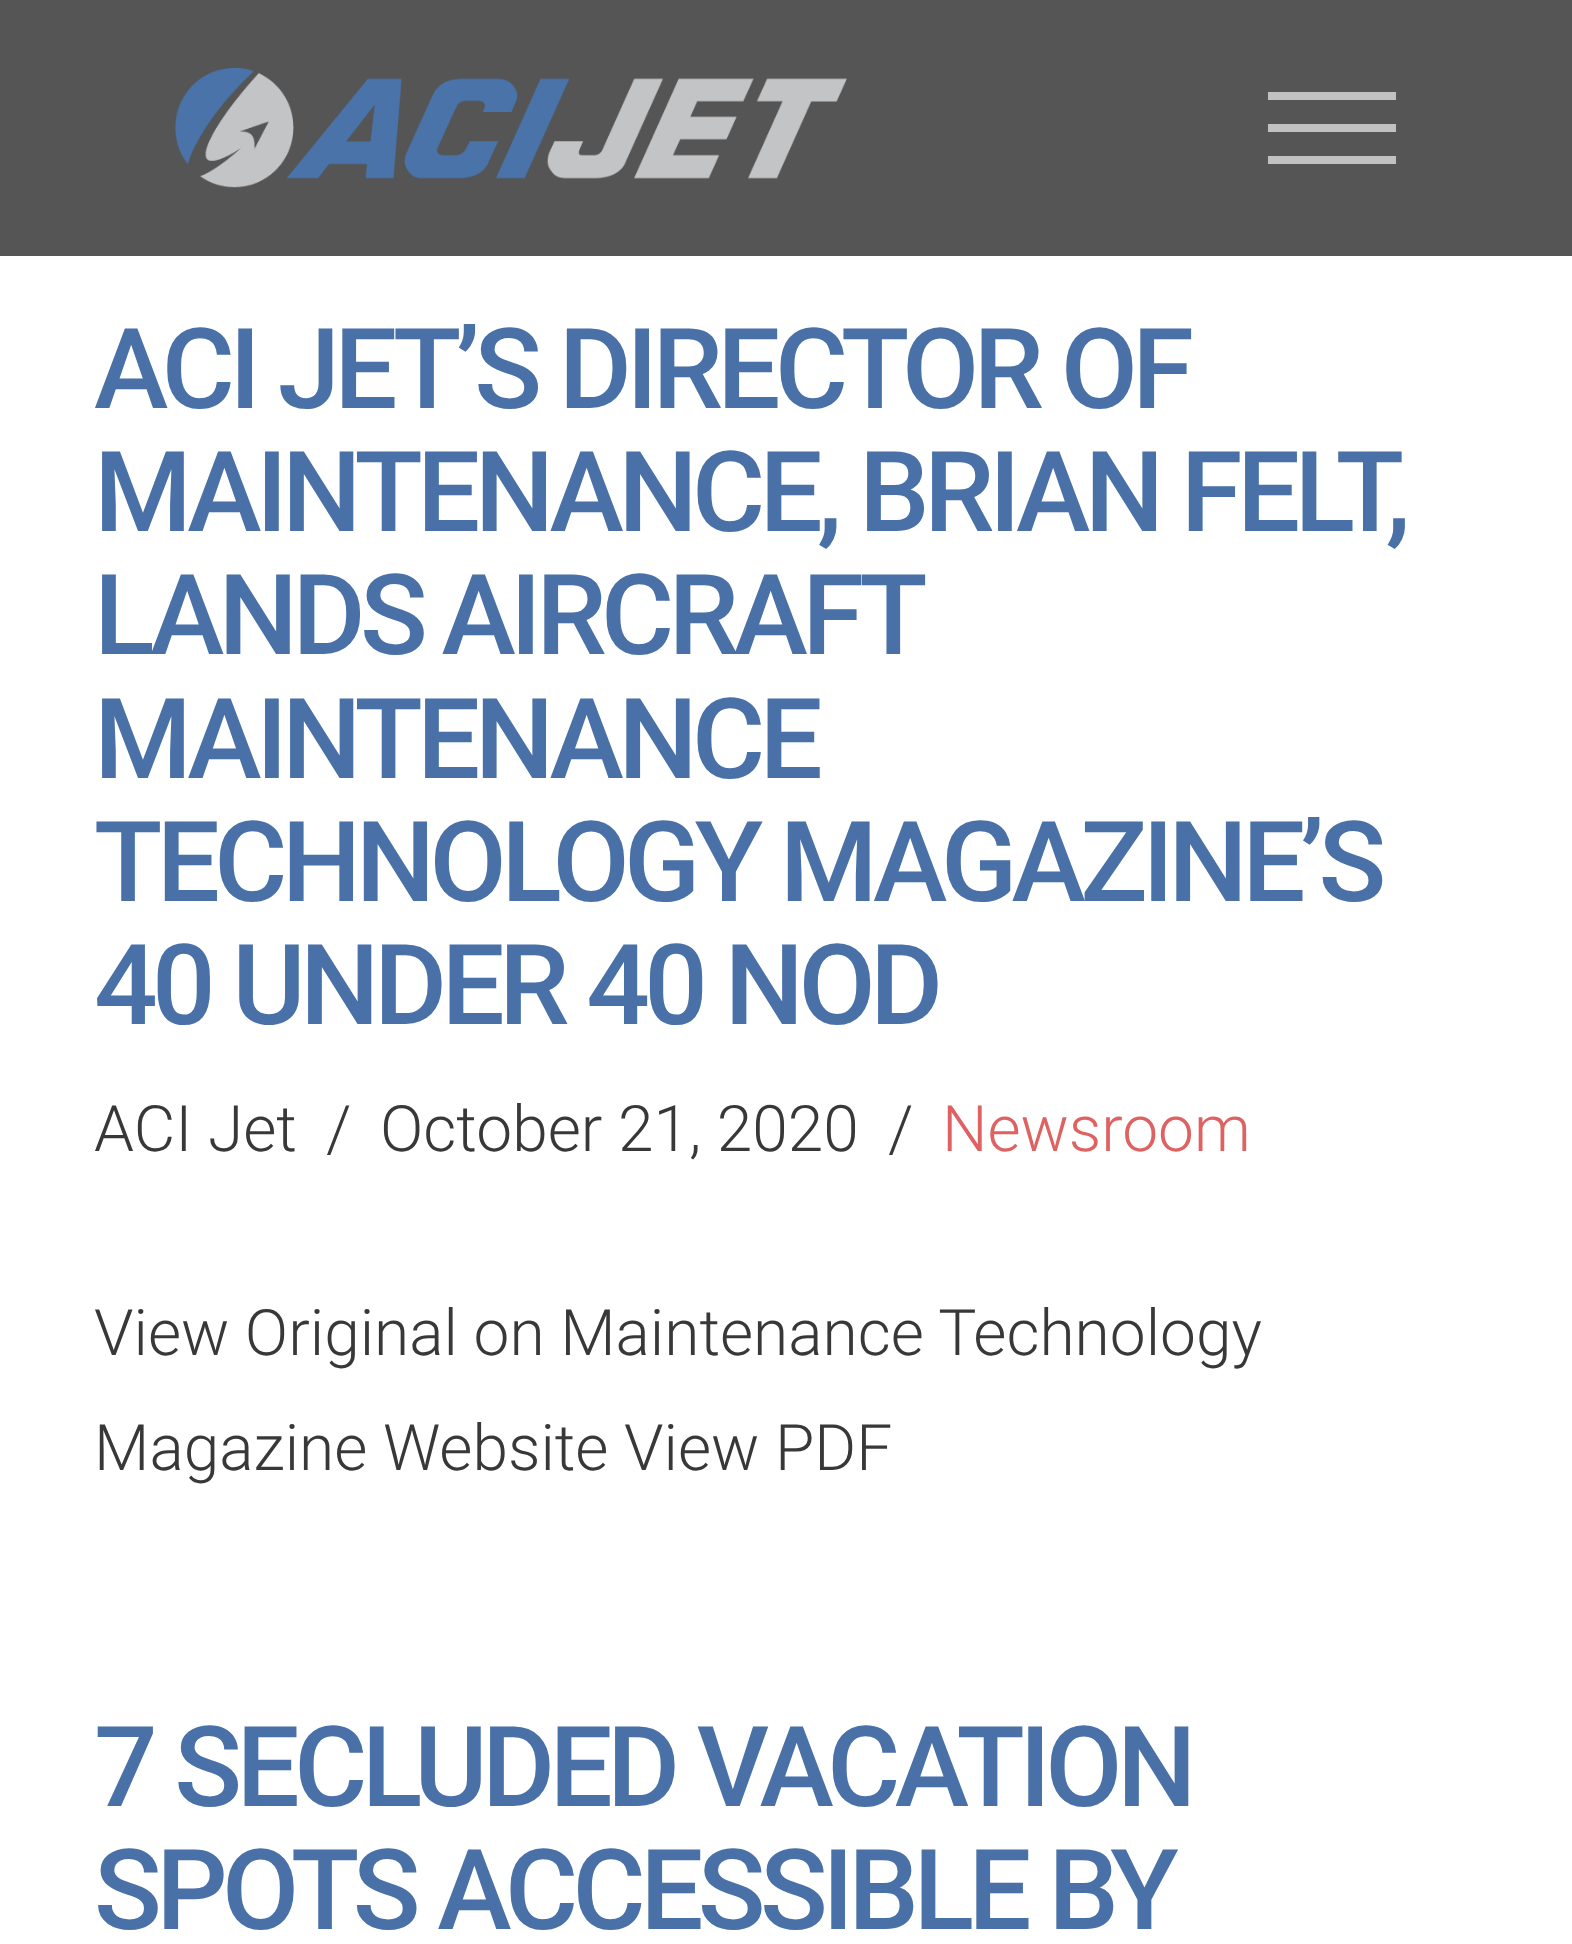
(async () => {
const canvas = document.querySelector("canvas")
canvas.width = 1572
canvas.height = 1944
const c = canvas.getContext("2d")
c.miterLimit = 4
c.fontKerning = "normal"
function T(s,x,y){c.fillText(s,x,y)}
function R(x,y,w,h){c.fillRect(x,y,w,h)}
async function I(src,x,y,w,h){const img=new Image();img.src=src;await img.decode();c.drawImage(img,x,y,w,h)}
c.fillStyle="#fff"
R(0,0,1572,1944)
c.fillStyle="#555"
R(0,0,1572,256)
await I("1.png",175,68,672,120)
c.fillStyle="#c1c1c4"
R(1268,92,128,8)
R(1268,124,128,8)
R(1268,156,128,8)
c.letterSpacing="-5.6px"
c.font="500 112px Roboto"
c.fillStyle="#4971a7"
T("ACI JET’S DIRECTOR OF",94,408)
T("MAINTENANCE, BRIAN FELT,",94,531)
c.wordSpacing="-3px"
T("LANDS AIRCRAFT",94,654)
c.wordSpacing="0px"
T("MAINTENANCE",94,778)
T("TECHNOLOGY MAGAZINE’S",94,901)
T("40 UNDER 40 NOD",94,1024)
c.letterSpacing="0px"
c.font="300 64px Roboto"
c.fillStyle="#383838"
T("ACI Jet",94,1151)
T("/",326,1151)
T("October 21, 2020",380,1151)
T("/",888,1151)
c.fillStyle="#de6262"
T("Newsroom",942,1151)
c.fillStyle="#383838"
T("View Original on Maintenance Technology",94,1355)
T("Magazine Website View PDF",94,1470)
c.letterSpacing="-5.6px"
c.font="500 112px Roboto"
c.fillStyle="#4971a7"
T("7 SECLUDED VACATION",94,1806)
T("SPOTS ACCESSIBLE BY",94,1929)
})()
